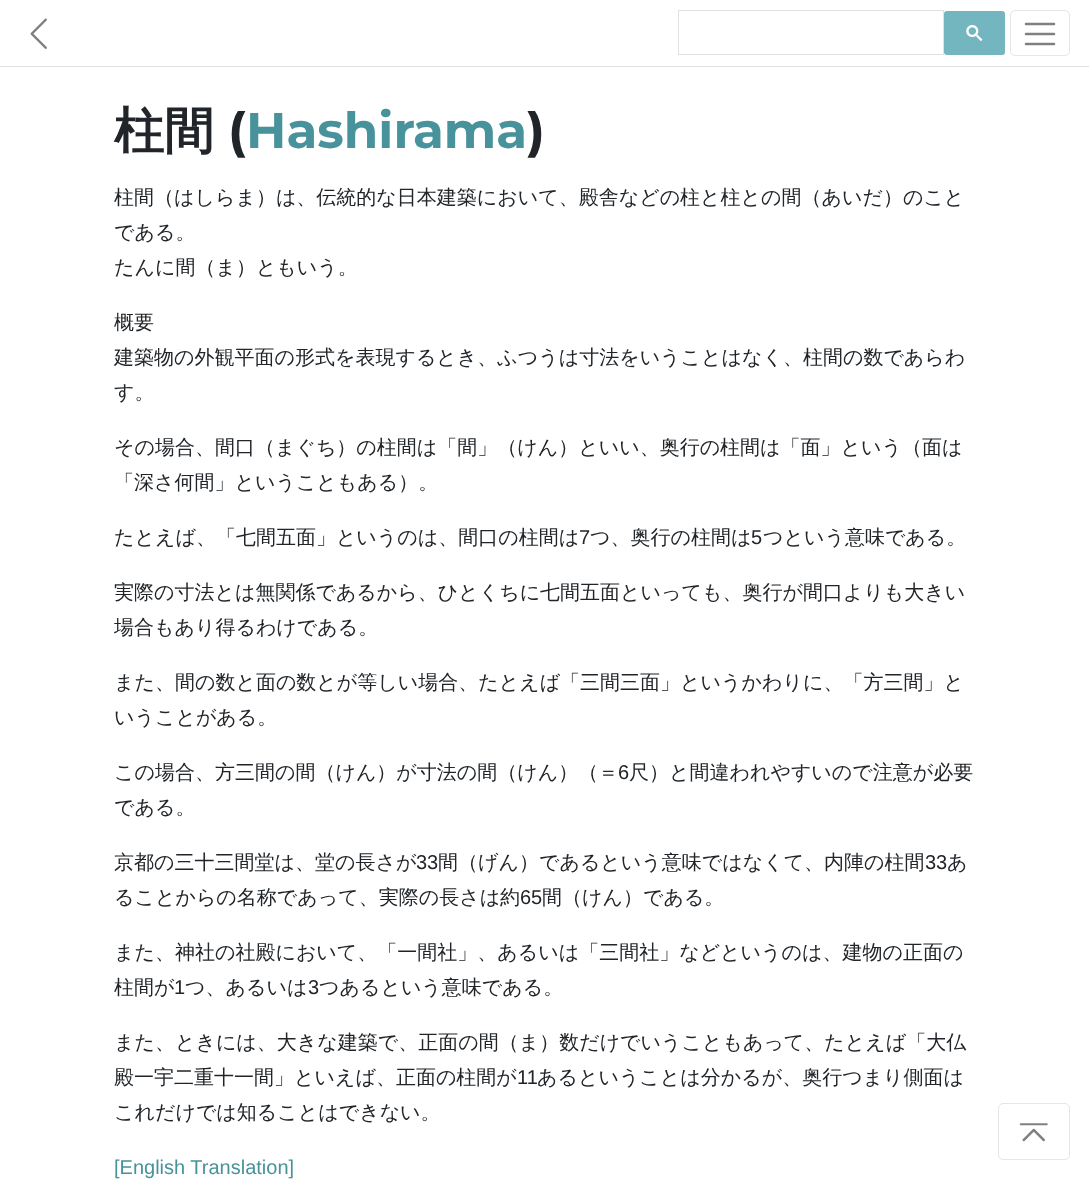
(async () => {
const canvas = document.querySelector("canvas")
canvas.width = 1089
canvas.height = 1180
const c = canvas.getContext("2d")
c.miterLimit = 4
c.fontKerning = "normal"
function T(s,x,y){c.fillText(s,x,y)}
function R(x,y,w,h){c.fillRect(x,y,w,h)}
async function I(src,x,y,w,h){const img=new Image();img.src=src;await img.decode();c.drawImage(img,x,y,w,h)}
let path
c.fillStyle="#fff"
R(0,0,1089,1180)
c.fillStyle="#dee2e6"
R(0,66,1089,1)
await I("1.png",30,18,17,31)
c.strokeStyle="#dfe1e5"
c.strokeRect(678.5,10.5,265,44)
c.fillStyle="#73b6bf"
c.beginPath()
c.roundRect(944.5,11.5,60,43,2)
c.fill()
c.strokeStyle="#73b6bf"
c.stroke()
await I("2.png",966,25,17,16)
c.beginPath()
c.roundRect(1010.5,10.5,59,45,4.5)
c.strokeStyle="#e6e6e6"
c.stroke()
path = new Path2D("M1026 24h28m-28 10h28m-28 10h28")
c.strokeStyle="#808080"
c.lineWidth=2.5
c.lineCap="round"
c.stroke(path)
c.font="bold 50px WenQuanYi Zen Hei"
c.fillStyle="#212529"
T("柱間",114,148)
c.font="bold 50px Montserrat"
T("(",228,148)
c.fillStyle="#48929b"
T("Hashirama",246,148)
c.fillStyle="#212529"
T(")",527,148)
c.font="500 20px WenQuanYi Zen Hei"
T("柱間（はしらま）は、伝統的な日本建築において、殿舎などの柱と柱との間（あいだ）のこと",114,204)
T("である。",114,239)
T("たんに間（ま）ともいう。",114,274)
T("概要",114,329)
T("建築物の外観平面の形式を表現するとき、ふつうは寸法をいうことはなく、柱間の数であらわ",114,364)
T("す。",114,399)
T("その場合、間口（まぐち）の柱間は「間」（けん）といい、奥行の柱間は「面」という（面は",114,454)
T("「深さ何間」ということもある）。",114,489)
T("たとえば、「七間五面」というのは、間口の柱間は",114,544)
c.font="20px Liberation Sans"
T("7",579,544)
c.font="500 20px WenQuanYi Zen Hei"
T("つ、奥行の柱間は",590,544)
c.font="20px Liberation Sans"
T("5",751,544)
c.font="500 20px WenQuanYi Zen Hei"
T("つという意味である。",763,544)
T("実際の寸法とは無関係であるから、ひとくちに七間五面といっても、奥行が間口よりも大きい",114,599)
T("場合もあり得るわけである。",114,634)
T("また、間の数と面の数とが等しい場合、たとえば「三間三面」というかわりに、「方三間」と",114,689)
T("いうことがある。",114,724)
T("この場合、方三間の間（けん）が寸法の間（けん）（＝",114,779)
c.font="20px Liberation Sans"
T("6",618,779)
c.font="500 20px WenQuanYi Zen Hei"
T("尺）と間違われやすいので注意が必要",629,779)
T("である。",114,814)
T("京都の三十三間堂は、堂の長さが",114,869)
c.font="20px Liberation Sans"
T("33",416,869)
c.font="500 20px WenQuanYi Zen Hei"
T("間（げん）であるという意味ではなくて、内陣の柱間",438,869)
c.font="20px Liberation Sans"
T("33",925,869)
c.font="500 20px WenQuanYi Zen Hei"
T("あ",947,869)
T("ることからの名称であって、実際の長さは約",114,904)
c.font="20px Liberation Sans"
T("65",520,904)
c.font="500 20px WenQuanYi Zen Hei"
T("間（けん）である。",542,904)
T("また、神社の社殿において、「一間社」、あるいは「三間社」などというのは、建物の正面の",114,959)
T("柱間が",114,994)
c.font="20px Liberation Sans"
T("1",174,994)
c.font="500 20px WenQuanYi Zen Hei"
T("つ、あるいは",185,994)
c.font="20px Liberation Sans"
T("3",308,994)
c.font="500 20px WenQuanYi Zen Hei"
T("つあるという意味である。",319,994)
T("また、ときには、大きな建築で、正面の間（ま）数だけでいうこともあって、たとえば「大仏",114,1049)
T("殿一宇二重十一間」といえば、正面の柱間が",114,1084)
c.font="20px Liberation Sans"
T("11",517,1084)
c.font="500 20px WenQuanYi Zen Hei"
T("あるということは分かるが、奥行つまり側面は",537,1084)
T("これだけでは知ることはできない。",114,1119)
c.font="20px Liberation Sans"
c.fillStyle="#48929b"
T("[English Translation]",114,1174)
c.beginPath()
c.roundRect(998.5,1103.5,71,56,4.5)
c.strokeStyle="#e6e6e6"
c.lineWidth=1
c.stroke()
await I("3.png",1019,1123,29,19)
})()
